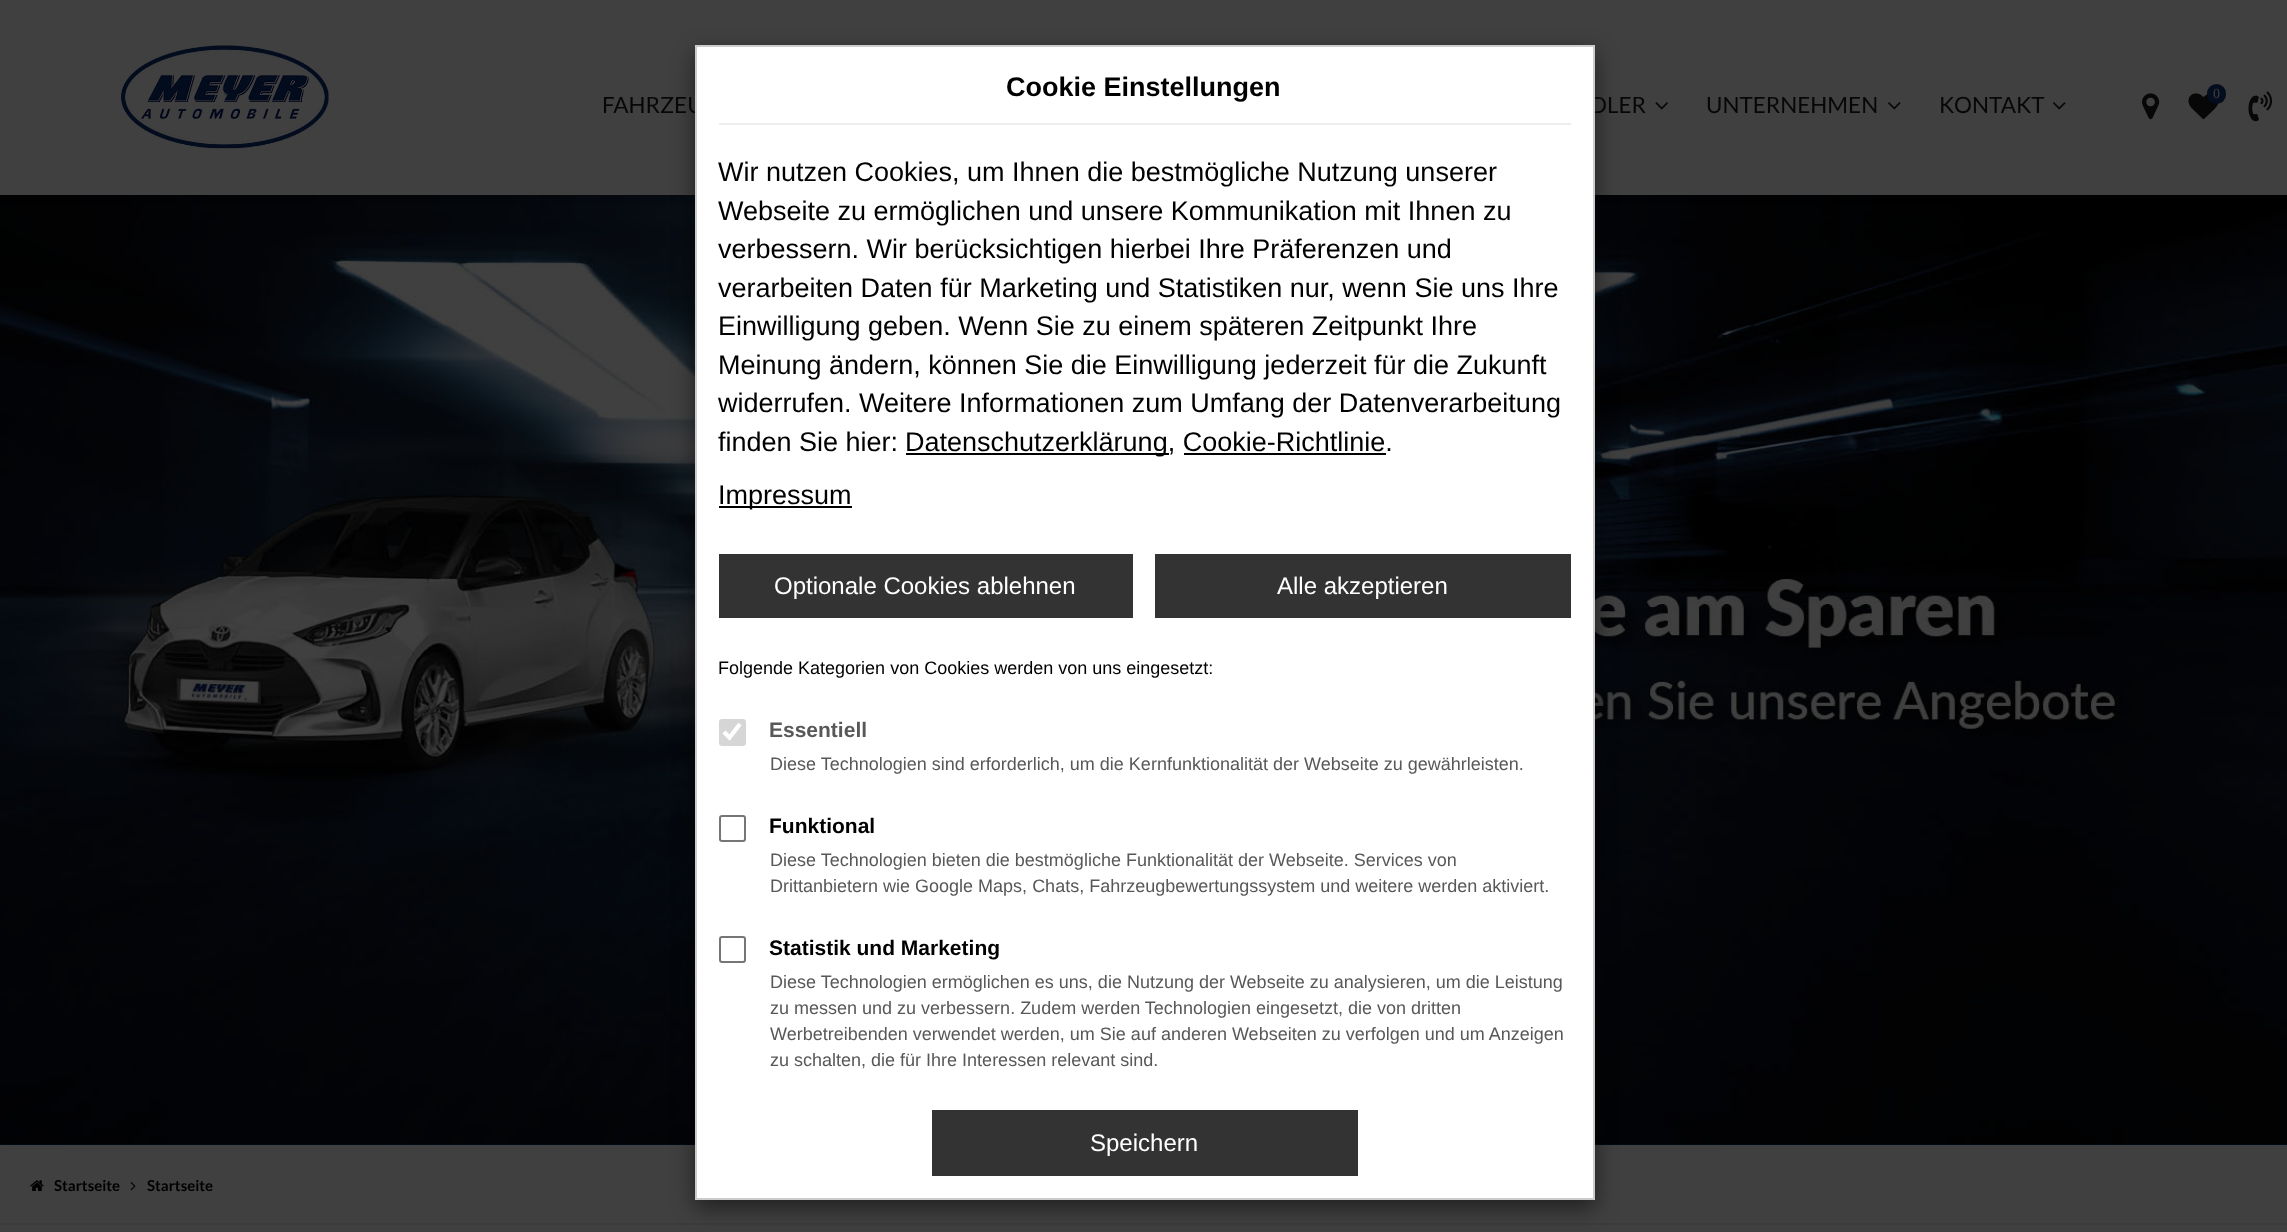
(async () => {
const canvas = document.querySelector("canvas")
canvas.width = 2287
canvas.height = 1232
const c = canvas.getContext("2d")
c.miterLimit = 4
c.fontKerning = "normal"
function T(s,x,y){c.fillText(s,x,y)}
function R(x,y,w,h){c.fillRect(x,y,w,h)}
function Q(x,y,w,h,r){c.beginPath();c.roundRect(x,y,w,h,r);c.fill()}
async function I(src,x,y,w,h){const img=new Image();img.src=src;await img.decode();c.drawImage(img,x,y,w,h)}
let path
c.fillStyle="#404040"
R(0,0,2287,1232)
c.fillStyle="#030d1d"
R(0,1144,2287,1)
await I("7.png",0,195,2287,950)
c.fillStyle="#00000040"
c.filter="blur(4px)"
c.beginPath()
c.rect(2,0,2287,195)
c.fill()
c.filter="none"
c.fillStyle="#404040"
R(0,0,2287,195)
c.fillStyle="#3c3c3c"
R(0,1223,2287,2)
c.fillStyle="#00000080"
c.filter="blur(11px)"
c.beginPath()
c.rect(695,53,900,1155)
c.fill()
c.filter="none"
c.font="22.5px Lato"
c.fillStyle="#070707"
T("FAHRZEU",602,113)
T("DLER",1590,113)
c.fillStyle="#fff"
c.beginPath()
c.rect(696,46,898,1153)
c.fill()
c.strokeStyle="#ccc"
c.lineWidth=2
c.stroke()
c.fillStyle="#eee"
R(719,123,852,2)
c.font="bold 27px Liberation Sans"
c.fillStyle="#000"
T("Cookie Einstellungen",1006,96)
c.font="27px Liberation Sans"
T("Wir nutzen Cookies, um Ihnen die bestmögliche Nutzung unserer",718,181)
T("Webseite zu ermöglichen und unsere Kommunikation mit Ihnen zu",718,220)
T("verbessern. Wir berücksichtigen hierbei Ihre Präferenzen und",718,258)
T("verarbeiten Daten für Marketing und Statistiken nur, wenn Sie uns Ihre",718,297)
T("Einwilligung geben. Wenn Sie zu einem späteren Zeitpunkt Ihre",718,335)
T("Meinung ändern, können Sie die Einwilligung jederzeit für die Zukunft",718,374)
T("widerrufen. Weitere Informationen zum Umfang der Datenverarbeitung",718,412)
T("finden Sie hier:",718,451)
R(906,453,263,2)
T("Datenschutzerklärung, Cookie-Richtlinie.",905,451)
R(1184,453,202,2)
R(719,506,133,2)
T("Impressum",718,504)
c.fillStyle="#333"
R(719,554,414,64)
c.font="24px Liberation Sans"
c.fillStyle="#fff"
T("Optionale Cookies ablehnen",774,594)
c.fillStyle="#333"
R(1155,554,416,64)
c.fillStyle="#fff"
T("Alle akzeptieren",1277,594)
c.font="18px Liberation Sans"
c.fillStyle="#000"
T("Folgende Kategorien von Cookies werden von uns eingesetzt:",718,674)
c.fillStyle="#d6d6d6"
Q(719,719,27,27,3)
path = new Path2D("M724 732l5.5 5.5l10.5-13.5")
c.strokeStyle="#fff"
c.lineWidth=4.3
c.stroke(path)
c.font="bold 21px Liberation Sans"
c.fillStyle="#585858"
T("Essentiell",769,737)
c.font="18px Liberation Sans"
T("Diese Technologien sind erforderlich, um die Kernfunktionalität der Webseite zu gewährleisten.",770,770)
c.beginPath()
c.roundRect(720,816,25,25,2)
c.strokeStyle="#767676"
c.lineWidth=2
c.stroke()
c.font="bold 21px Liberation Sans"
c.fillStyle="#000"
T("Funktional",769,833)
c.font="18px Liberation Sans"
c.fillStyle="#585858"
T("Diese Technologien bieten die bestmögliche Funktionalität der Webseite. Services von",770,866)
T("Drittanbietern wie Google Maps, Chats, Fahrzeugbewertungssystem und weitere werden aktiviert.",770,892)
c.beginPath()
c.roundRect(720,937,25,25,2)
c.stroke()
c.font="bold 21px Liberation Sans"
c.fillStyle="#000"
T("Statistik und Marketing",769,955)
c.font="18px Liberation Sans"
c.fillStyle="#585858"
T("Diese Technologien ermöglichen es uns, die Nutzung der Webseite zu analysieren, um die Leistung",770,988)
T("zu messen und zu verbessern. Zudem werden Technologien eingesetzt, die von dritten",770,1014)
T("Werbetreibenden verwendet werden, um Sie auf anderen Webseiten zu verfolgen und um Anzeigen",770,1040)
T("zu schalten, die für Ihre Interessen relevant sind.",770,1066)
c.fillStyle="#333"
R(932,1110,426,66)
c.font="24px Liberation Sans"
c.fillStyle="#fff"
T("Speichern",1090,1151)
await I("1.png",121,45,208,104)
await I("2.png",2142,93,18,27)
await I("3.png",2188,93,31,27)
c.fillStyle="#030d1d"
Q(2207,84,19,20,9.5)
c.font="14px Liberation Serif"
c.fillStyle="#404040"
T("0",2213,98)
await I("4.png",2248,91,25,31)
await I("5.png",1655,102,13,8)
c.font="22.5px Lato"
c.fillStyle="#070707"
T("UNTERNEHMEN",1706,113)
await I("6.png",1888,102,13,8)
T("KONTAKT",1939,113)
await I("6.png",2053,102,13,8)
await I("8.png",30,1180,14,11)
c.font="bold 15px Lato"
c.fillStyle="#000"
T("Startseite",54,1191)
await I("9.png",130,1182,6,9)
T("Startseite",147,1191)
})()
